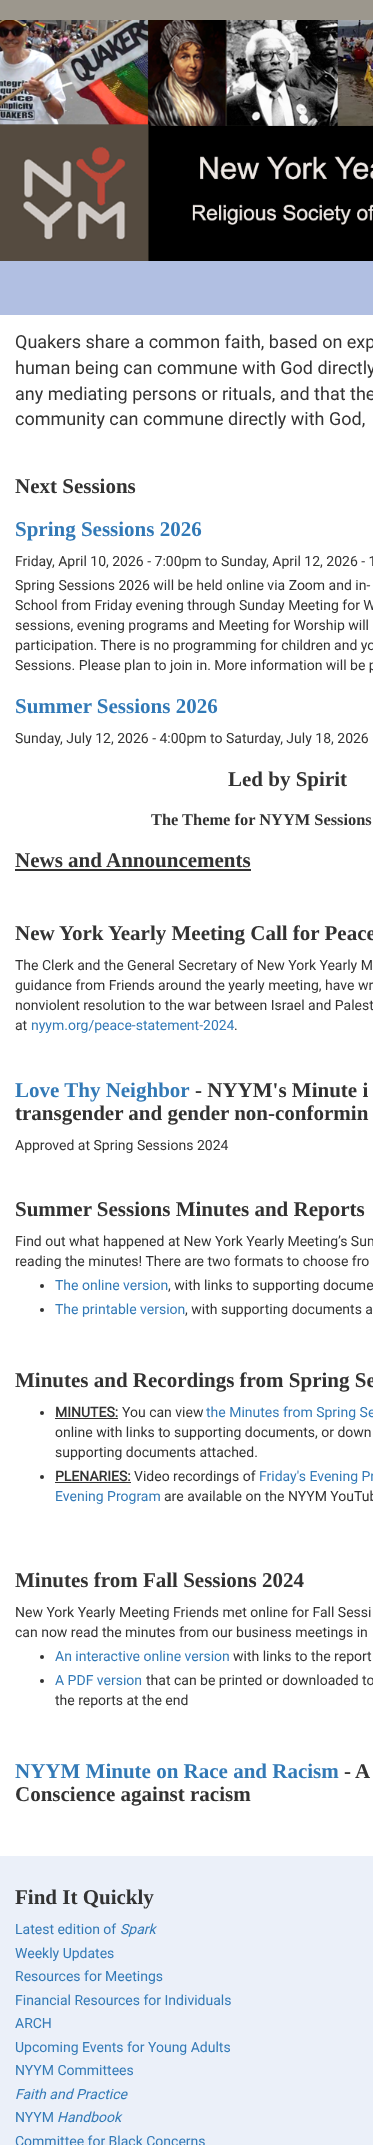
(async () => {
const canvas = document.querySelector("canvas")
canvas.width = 373
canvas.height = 2145
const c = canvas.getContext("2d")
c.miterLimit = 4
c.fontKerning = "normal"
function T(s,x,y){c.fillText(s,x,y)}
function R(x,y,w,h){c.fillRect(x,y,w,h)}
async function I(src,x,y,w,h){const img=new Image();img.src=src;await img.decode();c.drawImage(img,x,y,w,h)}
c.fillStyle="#9c978d"
R(0,0,373,2145)
await I("1.png",0,20,373,241)
c.fillStyle="#ebf0f9"
R(0,1856,373,289)
c.fillStyle="#b1bfe2"
R(0,261,373,54)
c.fillStyle="#fff"
R(0,315,373,1541)
c.font="18px Roboto"
c.fillStyle="#333"
T("Quakers share a common faith, based on exp",15,348)
T("human being can commune with God directly",15,374)
T("any mediating persons or rituals, and that the",15,400)
T("community can commune directly with God,",15,425)
c.font="bold 21px Liberation Serif"
T("Next Sessions",15,493)
c.fillStyle="#337ab7"
T("Spring Sessions 2026",15,536)
c.font="14px Roboto"
c.fillStyle="#333"
T("Friday, April 10, 2026 - 7:00pm to Sunday, April 12, 2026 - 1",15,566)
T("Spring Sessions 2026 will be held online via Zoom and in-",15,590)
T("School from Friday evening through Sunday Meeting for W",15,610)
T("sessions, evening programs and Meeting for Worship will",15,630)
T("participation. There is no programming for children and yo",15,650)
T("Sessions. Please plan to join in. More information will be p",15,670)
c.font="bold 21px Liberation Serif"
c.fillStyle="#337ab7"
T("Summer Sessions 2026",15,713)
c.font="14px Roboto"
c.fillStyle="#333"
T("Sunday, July 12, 2026 - 4:00pm to Saturday, July 18, 2026",15,743)
c.font="bold 21px Liberation Serif"
T("Led by Spirit",228,786)
c.font="bold 16.4px Liberation Serif"
T("The Theme for NYYM Sessions",151,825)
c.font="bold 21px Liberation Serif"
T("News and Announcements",15,867)
R(15,869,236,2)
T("New York Yearly Meeting Call for Peace",15,940)
c.font="14px Roboto"
T("The Clerk and the General Secretary of New York Yearly M",15,970)
T("guidance from Friends around the yearly meeting, have wr",15,990)
T("nonviolent resolution to the war between Israel and Palest",15,1010)
T("at",15,1030)
c.fillStyle="#337ab7"
T("nyym.org/peace-statement-2024",31,1030)
c.fillStyle="#333"
T(".",234,1030)
c.font="bold 21px Liberation Serif"
c.fillStyle="#337ab7"
T("Love Thy Neighbor",15,1097)
c.fillStyle="#333"
T("- NYYM's Minute i",195,1097)
T("transgender and gender non-conformin",15,1120)
c.font="14px Roboto"
T("Approved at Spring Sessions 2024",15,1150)
c.font="bold 21px Liberation Serif"
T("Summer Sessions Minutes and Reports",15,1216)
c.font="14px Roboto"
T("Find out what happened at New York Yearly Meeting’s Sum",15,1246)
T("reading the minutes! There are two formats to choose fro",15,1266)
c.beginPath()
c.arc(42,1286,2,0,7)
c.fill()
c.fillStyle="#337ab7"
T("The online version",55,1290)
c.fillStyle="#333"
T(", with links to supporting docume",168,1290)
c.beginPath()
c.arc(42,1310,2,0,7)
c.fill()
c.fillStyle="#337ab7"
T("The printable version",55,1314)
c.fillStyle="#333"
T(", with supporting documents a",185,1314)
c.font="bold 21px Liberation Serif"
T("Minutes and Recordings from Spring Se",15,1387)
c.beginPath()
c.arc(42,1413,2,0,7)
c.fill()
c.font="bold 14px Roboto"
T("MINUTES:",55,1417)
R(55,1418,63,1)
c.font="14px Roboto"
T("You can view",122,1417)
c.fillStyle="#337ab7"
T("the Minutes from Spring Se",206,1417)
c.fillStyle="#333"
T("online with links to supporting documents, or down",55,1437)
T("supporting documents attached.",55,1457)
c.beginPath()
c.arc(42,1477,2,0,7)
c.fill()
c.font="bold 14px Roboto"
T("PLENARIES:",55,1481)
R(55,1482,76,1)
c.font="14px Roboto"
T("Video recordings of",134,1481)
c.fillStyle="#337ab7"
T("Friday's Evening Pr",259,1481)
T("Evening Program",55,1501)
c.fillStyle="#333"
T("are available on the NYYM YouTub",164,1501)
c.font="bold 21px Liberation Serif"
T("Minutes from Fall Sessions 2024",15,1587)
c.font="14px Roboto"
T("New York Yearly Meeting Friends met online for Fall Sessi",15,1617)
T("can now read the minutes from our business meetings in",15,1637)
c.beginPath()
c.arc(42,1657,2,0,7)
c.fill()
c.fillStyle="#337ab7"
T("An interactive online version",55,1661)
c.fillStyle="#333"
T("with links to the report",233,1661)
c.beginPath()
c.arc(42,1681,2,0,7)
c.fill()
c.fillStyle="#337ab7"
T("A PDF version",55,1685)
c.fillStyle="#333"
T("that can be printed or downloaded to",146,1685)
T("the reports at the end",55,1705)
c.font="bold 21px Liberation Serif"
c.fillStyle="#337ab7"
T("NYYM Minute on Race and Racism",15,1778)
c.fillStyle="#333"
T("- A",344,1778)
T("Conscience against racism",15,1801)
T("Find It Quickly",15,1904)
c.font="14px Roboto"
c.fillStyle="#337ab7"
T("Latest edition of",15,1934)
c.font="italic 14px Roboto"
T("Spark",120,1934)
c.font="14px Roboto"
T("Weekly Updates",15,1958)
T("Resources for Meetings",15,1981)
T("Financial Resources for Individuals",15,2005)
T("ARCH",15,2028)
T("Upcoming Events for Young Adults",15,2052)
T("NYYM Committees",15,2075)
c.font="italic 14px Roboto"
T("Faith and Practice",15,2099)
c.font="14px Roboto"
T("NYYM",15,2122)
c.font="italic 14px Roboto"
T("Handbook",57,2122)
c.font="14px Roboto"
T("Committee for Black Concerns",15,2146)
})()
